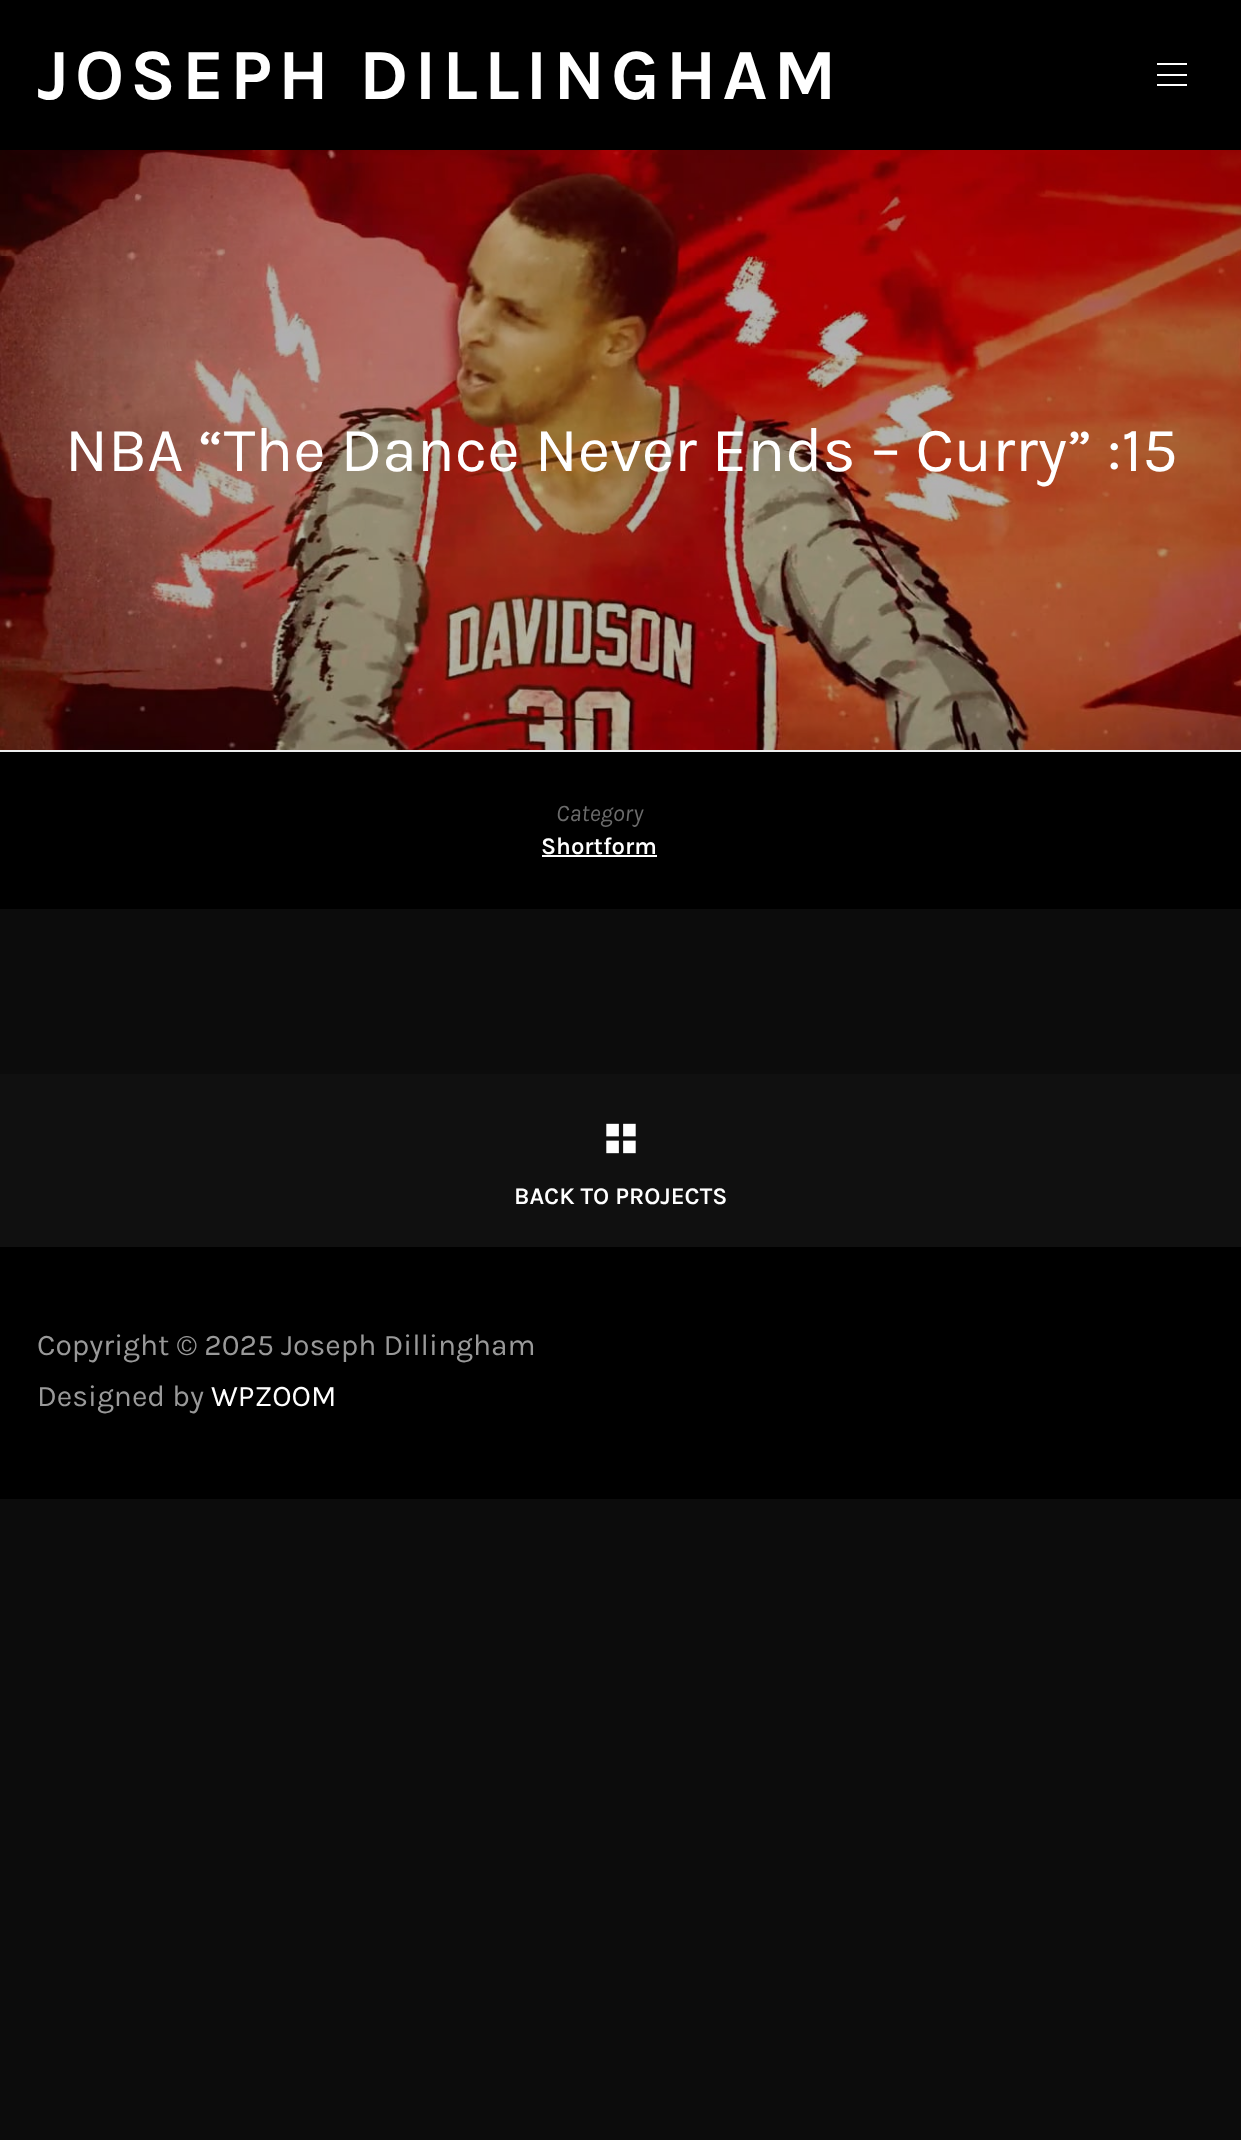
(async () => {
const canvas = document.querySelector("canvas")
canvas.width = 1241
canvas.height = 2140
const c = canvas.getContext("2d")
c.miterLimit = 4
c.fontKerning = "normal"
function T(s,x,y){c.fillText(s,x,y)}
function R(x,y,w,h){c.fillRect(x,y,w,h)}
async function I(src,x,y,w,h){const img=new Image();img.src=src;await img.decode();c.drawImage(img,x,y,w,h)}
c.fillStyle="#0c0c0c"
R(0,0,1241,2140)
c.fillStyle="#000"
R(0,0,1241,150)
c.letterSpacing="6px"
c.font="bold 72px Karla"
c.fillStyle="#fff"
T("JOSEPH DILLINGHAM",37,99)
R(1157,63,30,2)
R(1157,74,30,2)
R(1157,84,30,2)
await I("1.png",0,150,1241,600)
c.letterSpacing="0px"
c.font="63px Karla"
T("NBA “The Dance Never Ends – Curry” :15",65,471)
c.fillStyle="#000"
R(0,752,1241,157)
c.fillStyle="#eee"
R(0,750,1241,2)
c.font="italic 24px Karla"
c.fillStyle="#6b6b6b"
T("Category",556,821)
c.font="600 24px Karla"
c.fillStyle="#fff"
T("Shortform",541,854)
R(542,855,115,2)
c.fillStyle="#101010"
R(0,1074,1241,173)
await I("2.png",606,1123,30,31)
c.fillStyle="#fff"
T("BACK TO PROJECTS",514,1204)
c.fillStyle="#000"
R(0,1247,1241,252)
c.font="30px Karla"
c.fillStyle="#999"
T("Copyright © 2025 Joseph Dillingham",37,1355)
T("Designed by",37,1406)
c.fillStyle="#fff"
T("WPZOOM",211,1406)
})()
